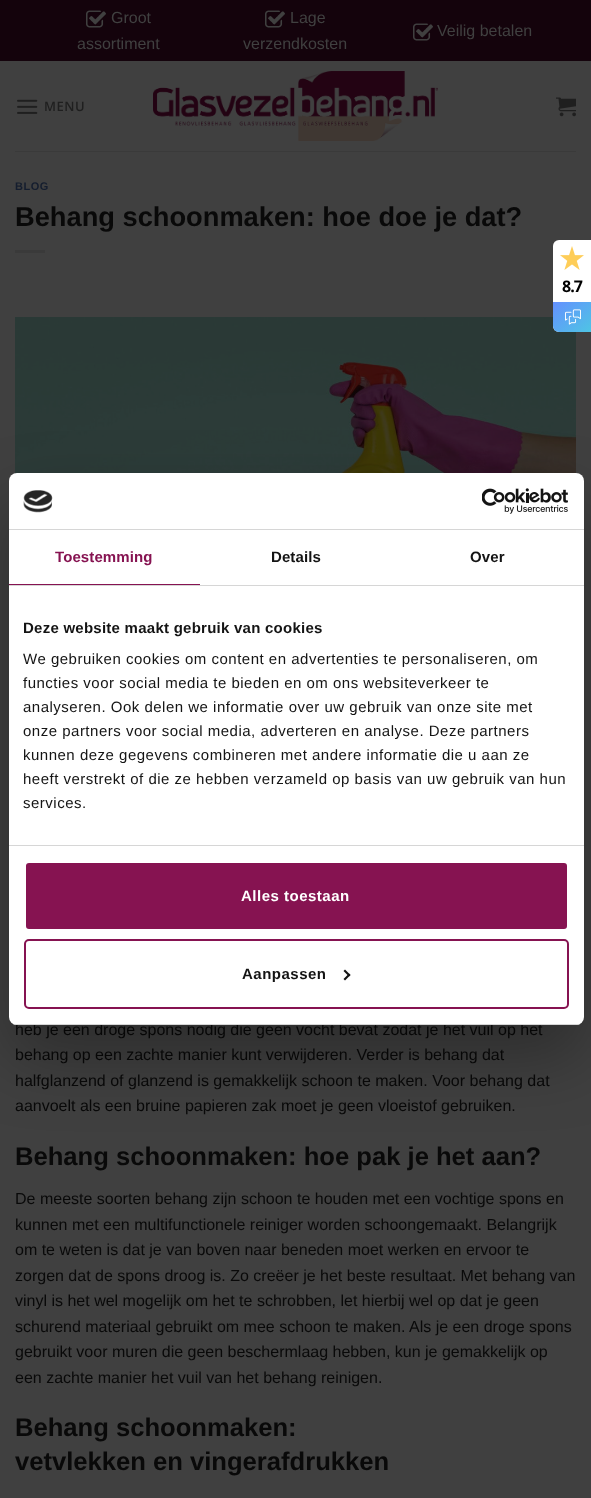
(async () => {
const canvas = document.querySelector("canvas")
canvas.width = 591
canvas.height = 1498
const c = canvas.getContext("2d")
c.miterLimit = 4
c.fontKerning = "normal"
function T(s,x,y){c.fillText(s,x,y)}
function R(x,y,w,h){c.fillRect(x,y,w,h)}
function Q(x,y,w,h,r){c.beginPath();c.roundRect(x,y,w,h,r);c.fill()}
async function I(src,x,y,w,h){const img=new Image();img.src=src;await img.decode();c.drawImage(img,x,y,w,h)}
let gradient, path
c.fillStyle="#404040"
R(0,0,591,1498)
c.fillStyle="#14030c"
R(0,0,591,61)
await I("1.png",86,10,20,18)
c.font="16px Liberation Sans"
c.fillStyle="#404040"
T("Groot",111,23)
T("assortiment",77,49)
await I("2.png",265,10,20,18)
T("Lage",290,23)
T("verzendkosten",243,49)
await I("3.png",413,23,20,18)
T("Veilig betalen",437,36)
await I("4.png",17,99,21,15)
c.letterSpacing="0.5px"
c.font="600 13px Open Sans"
c.fillStyle="#1f1f1f"
T("MENU",44,111)
await I("5.png",153,71,285,70)
await I("6.png",556,97,20,20)
c.fillStyle="#3a3a3a"
R(15,151,561,1)
c.font="bold 11px Liberation Sans"
c.fillStyle="#141d2e"
T("BLOG",15,190)
c.letterSpacing="0px"
c.font="bold 27.25px Liberation Sans"
c.fillStyle="#090909"
T("Behang schoonmaken: hoe doe je dat?",15,226)
c.fillStyle="#3a3a3a"
R(15,250,30,3)
await I("7.png",15,317,561,157)
c.font="16px Liberation Sans"
c.fillStyle="#090909"
T("heb je een droge spons nodig die geen vocht bevat zodat je het vuil op het",15,1035)
T("behang op een zachte manier kunt verwijderen. Verder is behang dat",15,1060)
T("halfglanzend of glanzend is gemakkelijk schoon te maken. Voor behang dat",15,1086)
T("aanvoelt als een bruine papieren zak moet je geen vloeistof gebruiken.",15,1111)
c.font="bold 25.6px Liberation Sans"
T("Behang schoonmaken: hoe pak je het aan?",15,1165)
c.font="16px Liberation Sans"
T("De meeste soorten behang zijn schoon te houden met een vochtige spons en",15,1204)
T("kunnen met een multifunctionele reiniger worden schoongemaakt. Belangrijk",15,1230)
T("om te weten is dat je van boven naar beneden moet werken en ervoor te",15,1255)
T("zorgen dat de spons droog is. Zo creëer je het beste resultaat. Met behang van",15,1281)
T("vinyl is het wel mogelijk om het te schrobben, let hierbij wel op dat je geen",15,1306)
T("schurend materiaal gebruikt om mee schoon te maken. Als je een droge spons",15,1332)
T("gebruikt voor muren die geen beschermlaag hebben, kun je gemakkelijk op",15,1357)
T("een zachte manier het vuil van het behang reinigen.",15,1383)
c.font="bold 25.6px Liberation Sans"
T("Behang schoonmaken:",15,1436)
T("vetvlekken en vingerafdrukken",15,1470)
c.fillStyle="#fff"
c.beginPath()
c.roundRect(553,240,38,92,[6,0,0,6])
c.fill()
await I("8.png",560,246,24,24)
c.letterSpacing="-1px"
c.font="bold 16px Open Sans"
c.fillStyle="#000"
T("8.7",562,292)
gradient = c.createLinearGradient(556,299,588,335)
gradient.addColorStop(0,"#6590ff")
gradient.addColorStop(1,"#4ec5e4")
c.fillStyle = gradient
c.beginPath()
c.roundRect(553,302,38,30,[0,0,0,6])
c.fill()
await I("9.png",565,309,16,16)
c.fillStyle="#0000004d"
c.filter="blur(34px)"
c.beginPath()
c.roundRect(9,505,575,552,8)
c.fill()
c.filter="none"
c.fillStyle="#fff"
Q(9,473,575,552,8)
c.fillStyle="#d6d6d6"
R(9,529,575,1)
await I("10.png",23,490,30,23)
await I("11.png",482,488,86,26)
R(9,585,575,1)
c.fillStyle="#861351"
R(9,584,191,1)
c.letterSpacing="0.1px"
c.font="bold 15px Liberation Sans"
T("Toestemming",55,562)
c.fillStyle="#141414"
T("Details",271,562)
T("Over",470,562)
c.fillStyle="#d6d6d6"
R(9,845,575,1)
c.letterSpacing="0.25px"
c.fillStyle="#141414"
T("Deze website maakt gebruik van cookies",23,633)
c.letterSpacing="0.5px"
c.font="15px Liberation Sans"
T("We gebruiken cookies om content en advertenties te personaliseren, om",23,664)
T("functies voor social media te bieden en om ons websiteverkeer te",23,688)
T("analyseren. Ook delen we informatie over uw gebruik van onze site met",23,712)
T("onze partners voor social media, adverteren en analyse. Deze partners",23,736)
T("kunnen deze gegevens combineren met andere informatie die u aan ze",23,760)
T("heeft verstrekt of die ze hebben verzameld op basis van uw gebruik van hun",23,784)
T("services.",23,808)
c.save()
c.beginPath()
c.roundRect(9,473,575,552,8)
c.clip()
c.fillStyle="#d6d6d6"
R(9,1024,575,1)
c.restore()
c.fillStyle="#861351"
c.beginPath()
c.roundRect(25,862,543,68,4)
c.fill()
c.strokeStyle="#fff"
c.lineWidth=2
c.stroke()
c.font="bold 15px Liberation Sans"
c.fillStyle="#fff"
T("Alles toestaan",241,901)
c.beginPath()
c.roundRect(25,940,543,68,4)
c.strokeStyle="#861351"
c.stroke()
c.fillStyle="#141414"
T("Aanpassen",242,979)
path = new Path2D("M345 969.5l5.5 5.5l-1.5 1.5l-5.5-5.5z")
c.fill(path)
path = new Path2D("M349 973.5l1.5 1.5l-5.5 5.5l-1.5-1.5z")
c.fill(path)
})()
